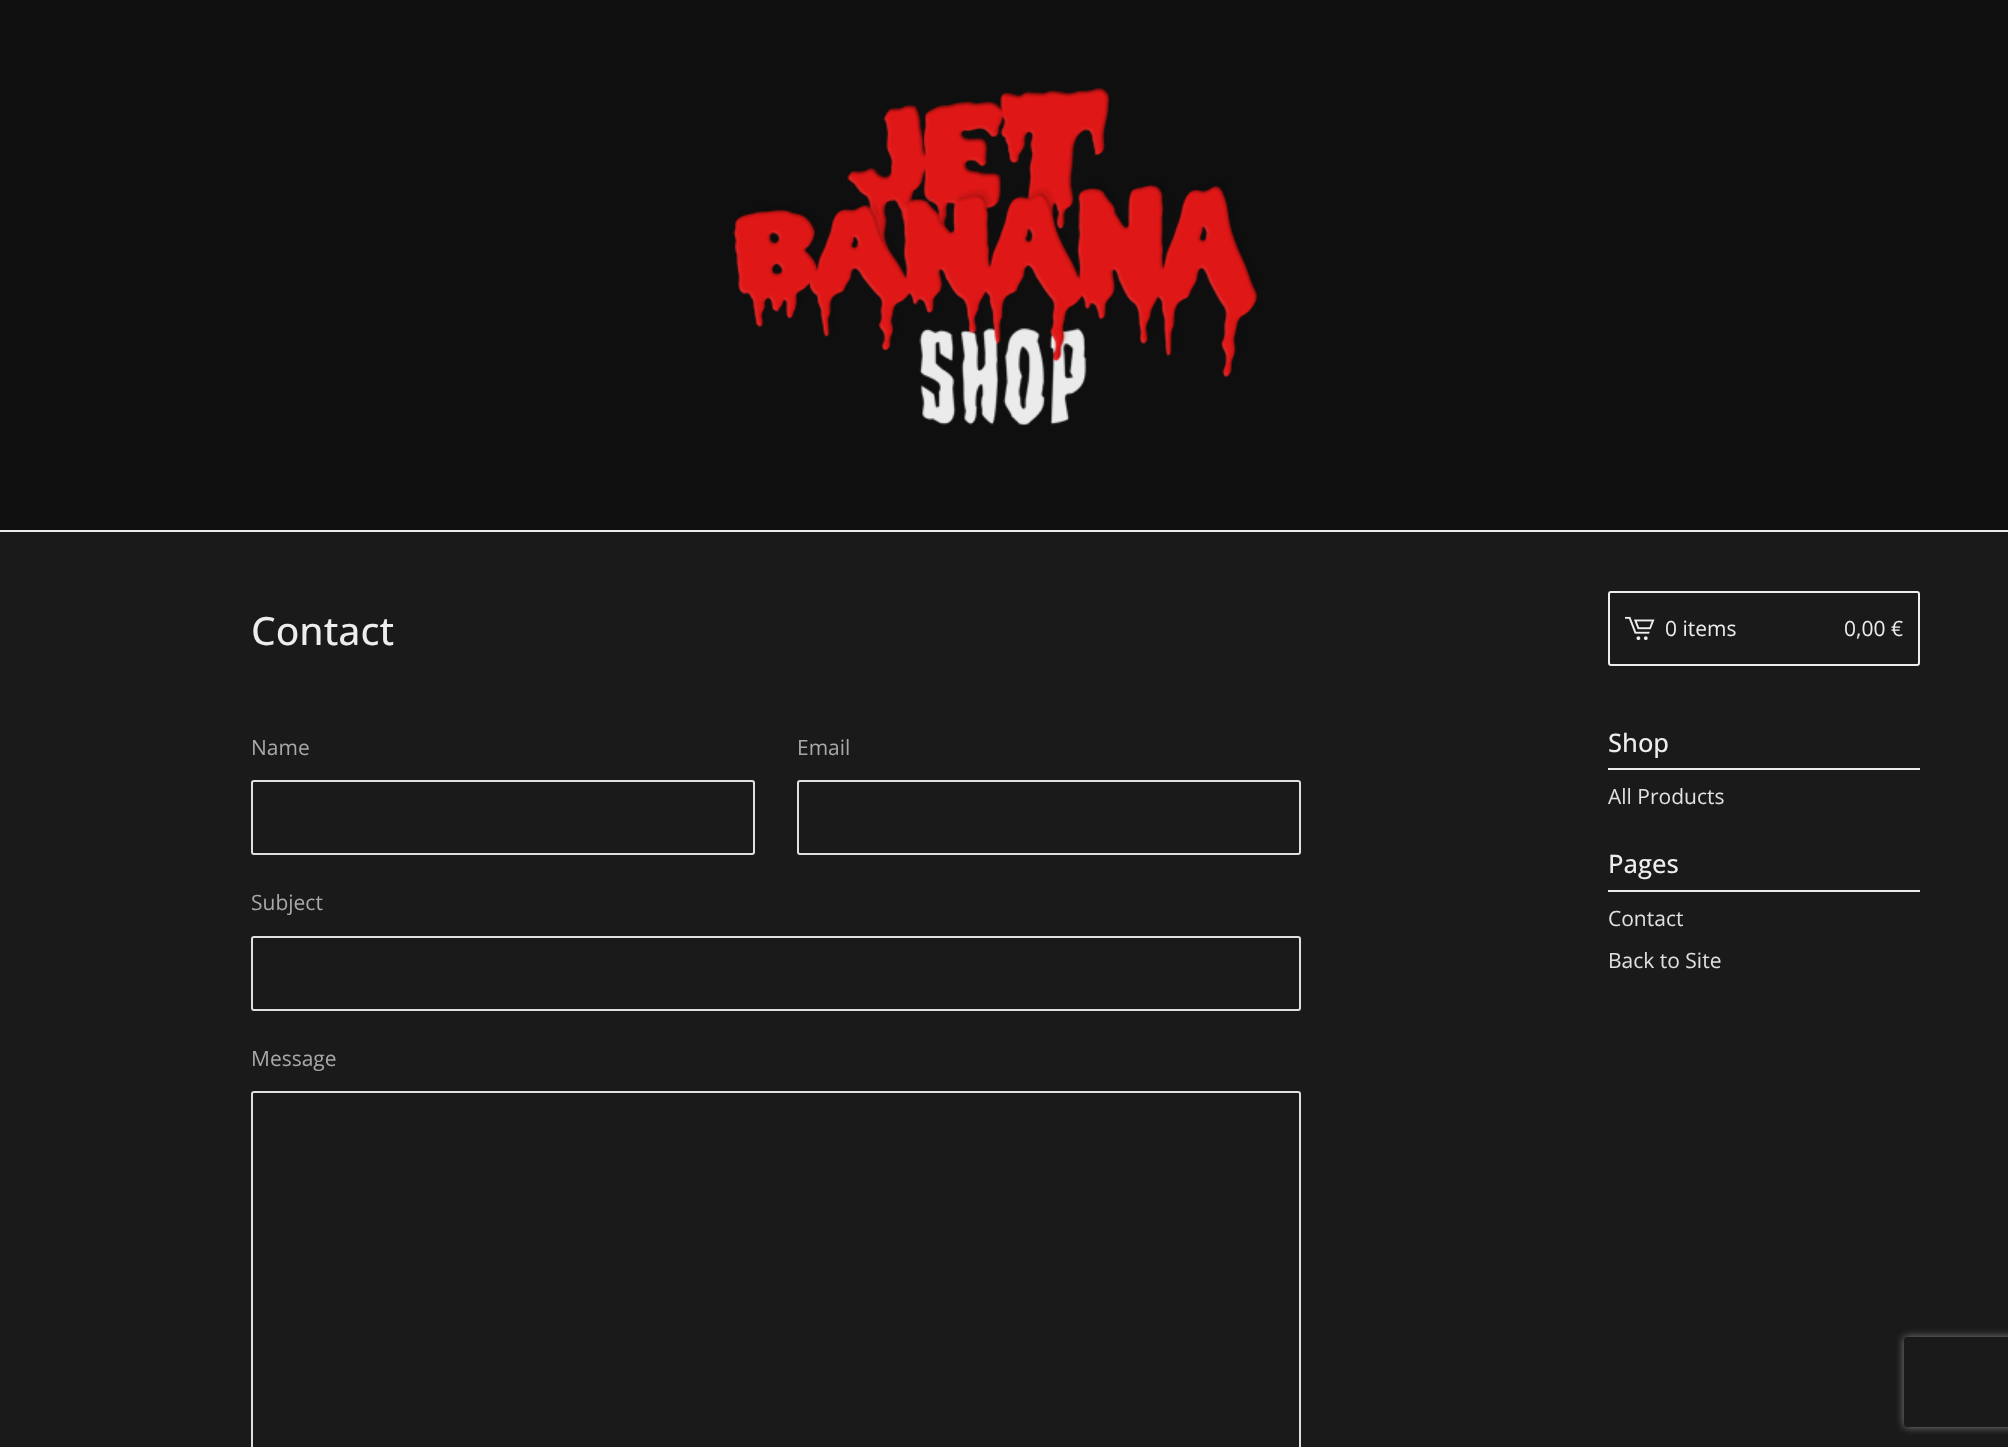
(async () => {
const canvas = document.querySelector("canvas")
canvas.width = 2008
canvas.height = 1447
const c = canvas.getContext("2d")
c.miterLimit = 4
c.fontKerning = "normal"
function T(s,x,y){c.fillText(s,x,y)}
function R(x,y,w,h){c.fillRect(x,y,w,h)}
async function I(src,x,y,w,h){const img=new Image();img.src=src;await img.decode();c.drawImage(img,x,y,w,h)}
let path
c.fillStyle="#1a1a1a"
R(0,0,2008,1447)
c.fillStyle="#0f0f0f"
R(0,0,2008,530)
c.fillStyle="#ebebeb"
R(0,530,2008,2)
await I("1.png",733,87,525,339)
c.font="500 39px Open Sans"
c.fillStyle="#ededed"
T("Contact",251,645)
c.font="21px Open Sans"
c.fillStyle="#a8a8a8"
T("Name",251,755)
c.beginPath()
c.roundRect(252,781,502,73,2)
c.strokeStyle="#e0e0e0"
c.lineWidth=2
c.stroke()
T("Email",797,755)
c.beginPath()
c.roundRect(798,781,502,73,2)
c.stroke()
T("Subject",251,910)
c.beginPath()
c.roundRect(252,937,1048,73,2)
c.stroke()
T("Message",251,1066)
c.beginPath()
c.roundRect(252,1092,1048,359,2)
c.stroke()
c.save()
path = new Path2D("M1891 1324h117v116h-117zm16 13h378c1.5 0 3 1.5 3 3v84c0 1.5-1.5 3-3 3h-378c-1.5 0-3-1.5-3-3v-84c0-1.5 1.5-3 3-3z")
c.clip(path,"evenodd")
c.fillStyle="#808080"
c.filter="blur(4px)"
c.beginPath()
c.roundRect(1904,1337,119,90,3)
c.fill()
c.filter="none"
c.restore()
c.beginPath()
c.roundRect(1609,592,310,73,2)
c.strokeStyle="#ededed"
c.stroke()
await I("2.png",1625,616,30,25)
c.fillStyle="#ededed"
T("0 items",1665,636)
T("0,00 €",1844,636)
c.fillStyle="#ebebeb"
R(1608,768,312,2)
c.font="500 25.5px Open Sans"
c.fillStyle="#ededed"
T("Shop",1608,752)
c.font="21px Open Sans"
c.fillStyle="#e0e0e0"
T("All Products",1608,804)
c.fillStyle="#ebebeb"
R(1608,890,312,2)
c.font="500 25.5px Open Sans"
c.fillStyle="#ededed"
T("Pages",1608,873)
c.font="21px Open Sans"
c.fillStyle="#e0e0e0"
T("Contact",1608,926)
T("Back to Site",1608,968)
})()
